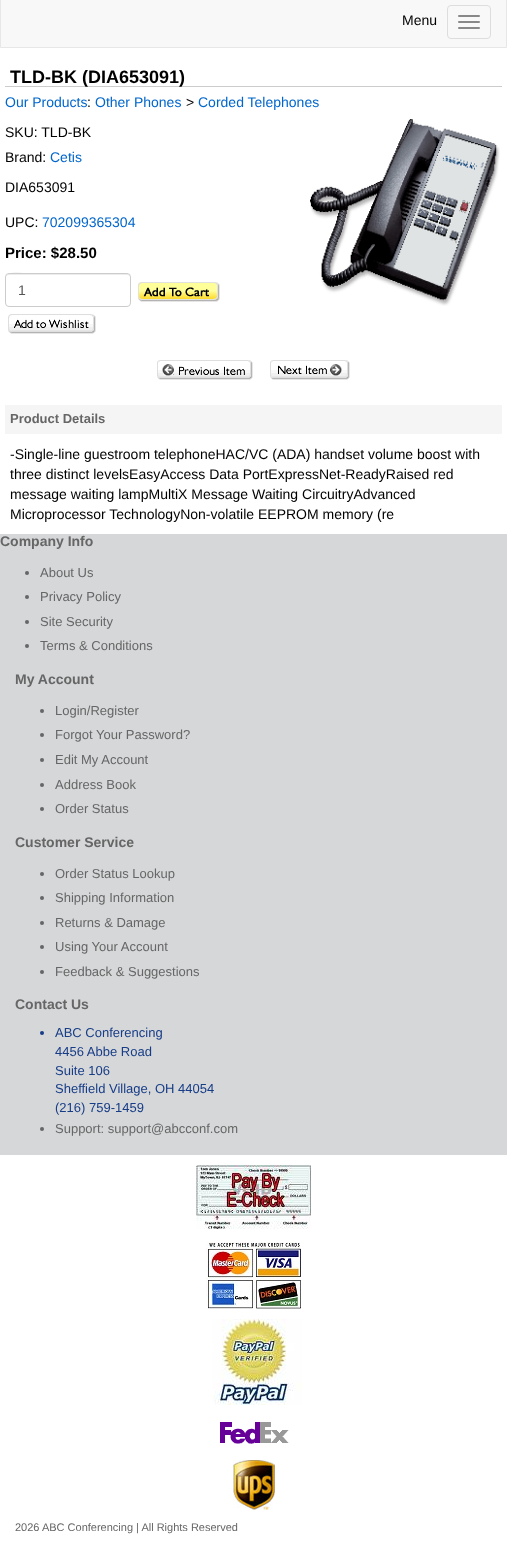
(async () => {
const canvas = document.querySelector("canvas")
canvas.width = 507
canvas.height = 1546
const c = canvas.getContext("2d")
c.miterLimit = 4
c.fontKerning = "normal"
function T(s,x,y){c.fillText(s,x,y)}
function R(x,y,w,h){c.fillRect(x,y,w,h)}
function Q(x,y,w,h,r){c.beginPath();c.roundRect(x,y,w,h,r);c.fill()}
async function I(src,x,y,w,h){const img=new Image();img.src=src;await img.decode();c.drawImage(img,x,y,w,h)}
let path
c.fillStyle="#fff"
R(0,0,507,1546)
c.fillStyle="#f8f8f8"
c.beginPath()
c.rect(.5,-.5,506,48)
c.fill()
c.strokeStyle="#e7e7e7"
c.stroke()
c.font="14px Liberation Sans"
c.fillStyle="#000"
T("Menu",402,25)
c.beginPath()
c.roundRect(447.5,5.5,43,33,3.5)
c.strokeStyle="#ddd"
c.stroke()
c.fillStyle="#888"
Q(458,15,22,2,1)
Q(458,21,22,2,1)
Q(458,27,22,2,1)
c.fillStyle="#ccc"
R(5,86,497,1)
c.font="bold 18px Liberation Sans"
c.fillStyle="#000"
T("TLD-BK (DIA653091)",10,83)
c.font="14px Liberation Sans"
c.fillStyle="#06c"
T("Our Products",5,107)
c.fillStyle="#000"
T(":",87,107)
c.fillStyle="#06c"
T("Other Phones",95,107)
c.fillStyle="#000"
T(">",186,107)
c.fillStyle="#06c"
T("Corded Telephones",198,107)
c.fillStyle="#000"
T("SKU: TLD-BK",5,137)
T("Brand:",5,162)
c.fillStyle="#06c"
T("Cetis",50,162)
c.fillStyle="#000"
T("DIA653091",5,192)
T("UPC:",5,227)
c.fillStyle="#06c"
T("702099365304",42,227)
c.font="bold 15px Liberation Sans"
c.fillStyle="#000"
T("Price: $28.50",5,258)
c.fillStyle="#ececec"
path = new Path2D("M9 275h118c2 0 3 1 3 3c0-2-1-4-3-4h-98c-1 0-23-5-23 4c0-2 1-3 3-3z")
c.fill(path)
c.beginPath()
c.roundRect(5.5,273.5,125,33,3.5)
c.strokeStyle="#ccc"
c.stroke()
c.font="14px Liberation Sans"
c.fillStyle="#555"
T("1",18,295)
await I("1.png",138,282,82,20)
await I("2.png",8,314,88,20)
await I("3.png",310,119,190,187)
await I("4.png",157,360,96,20)
await I("5.png",270,360,80,20)
c.fillStyle="#f5f5f5"
R(5,405,497,29)
c.font="bold 13px Liberation Sans"
c.fillStyle="#666"
T("Product Details",10,423)
c.font="14px Liberation Sans"
c.fillStyle="#000"
T("-Single-line guestroom telephoneHAC/VC (ADA) handset volume boost with",10,459)
T("three distinct levelsEasyAccess Data PortExpressNet-ReadyRaised red",10,479)
T("message waiting lampMultiX Message Waiting CircuitryAdvanced",10,499)
T("Microprocessor TechnologyNon-volatile EEPROM memory (re",10,519)
c.fillStyle="#d6d7d9"
R(0,534,507,621)
c.font="bold 14px Liberation Sans"
c.fillStyle="#666"
T("Company Info",0,546)
c.beginPath()
c.arc(27,573,2,0,7)
c.fill()
c.font="13px Liberation Sans"
T("About Us",40,577)
c.beginPath()
c.arc(27,597,2,0,7)
c.fill()
T("Privacy Policy",40,601)
c.beginPath()
c.arc(27,622,2,0,7)
c.fill()
T("Site Security",40,626)
c.beginPath()
c.arc(27,646,2,0,7)
c.fill()
T("Terms & Conditions",40,650)
c.font="bold 14px Liberation Sans"
T("My Account",15,684)
c.beginPath()
c.arc(42,711,2,0,7)
c.fill()
c.font="13px Liberation Sans"
T("Login/Register",55,715)
c.beginPath()
c.arc(42,735,2,0,7)
c.fill()
T("Forgot Your Password?",55,739)
c.beginPath()
c.arc(42,760,2,0,7)
c.fill()
T("Edit My Account",55,764)
c.beginPath()
c.arc(42,785,2,0,7)
c.fill()
T("Address Book",55,789)
c.beginPath()
c.arc(42,809,2,0,7)
c.fill()
T("Order Status",55,813)
c.font="bold 14px Liberation Sans"
T("Customer Service",15,847)
c.beginPath()
c.arc(42,874,2,0,7)
c.fill()
c.font="13px Liberation Sans"
T("Order Status Lookup",55,878)
c.beginPath()
c.arc(42,898,2,0,7)
c.fill()
T("Shipping Information",55,902)
c.beginPath()
c.arc(42,923,2,0,7)
c.fill()
T("Returns & Damage",55,927)
c.beginPath()
c.arc(42,947,2,0,7)
c.fill()
T("Using Your Account",55,951)
c.beginPath()
c.arc(42,972,2,0,7)
c.fill()
T("Feedback & Suggestions",55,976)
c.font="bold 14px Liberation Sans"
T("Contact Us",15,1009)
c.fillStyle="#173d87"
c.beginPath()
c.arc(42,1033,2,0,7)
c.fill()
c.font="13px Liberation Sans"
T("ABC Conferencing",55,1037)
T("4456 Abbe Road",55,1056)
T("Suite 106",55,1075)
T("Sheffield Village, OH 44054",55,1093)
T("(216) 759-1459",55,1112)
c.fillStyle="#666"
c.beginPath()
c.arc(42,1129,2,0,7)
c.fill()
T("Support: support@abcconf.com",55,1133)
await I("6.png",196,1165,115,64)
await I("7.png",206,1242,95,67)
await I("8.png",212,1319,90,86)
await I("9.png",220,1422,69,22)
await I("10.png",233,1460,42,50)
c.font="11px Liberation Sans"
T("2026 ABC Conferencing | All Rights Reserved",15,1531)
})()
